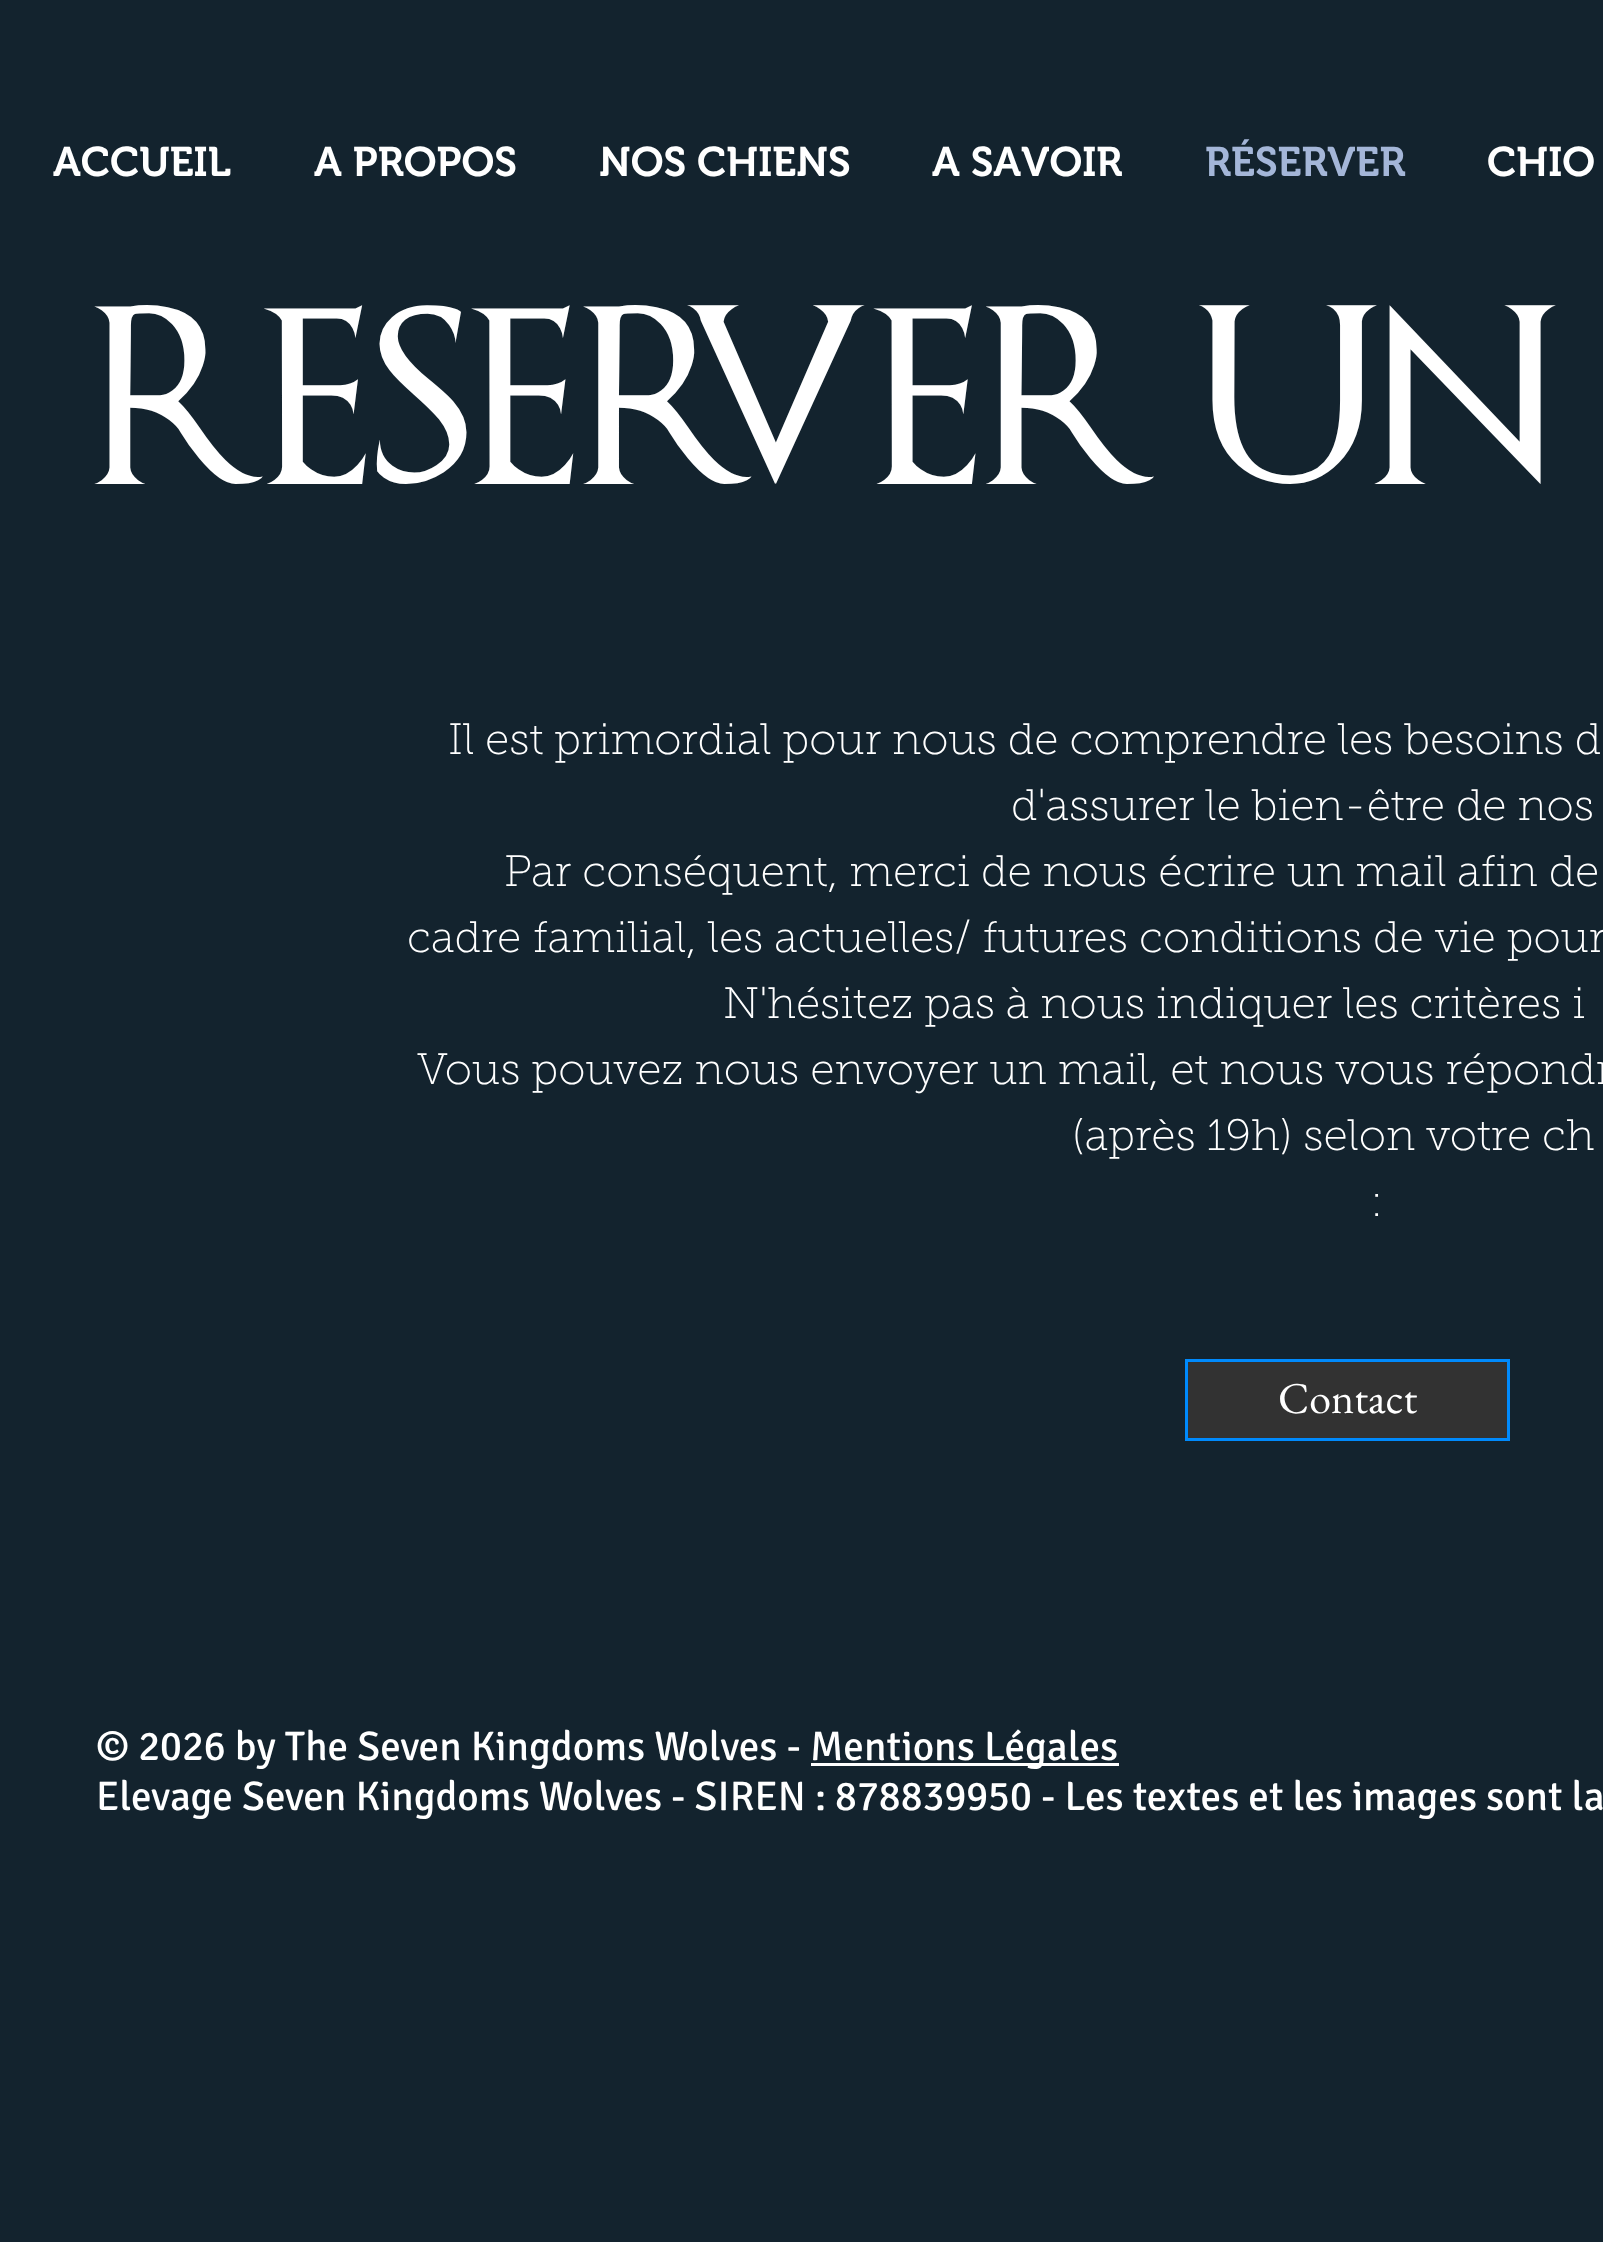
(async () => {
const canvas = document.querySelector("canvas")
canvas.width = 1603
canvas.height = 2242
const c = canvas.getContext("2d")
c.miterLimit = 4
c.fontKerning = "normal"
function T(s,x,y){c.fillText(s,x,y)}
function R(x,y,w,h){c.fillRect(x,y,w,h)}
c.fillStyle="#13232e"
R(0,0,1603,2242)
c.font="600 41.25px 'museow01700'"
c.fillStyle="#fff"
T("ACCUEIL",53,176)
T("A PROPOS",314,176)
T("NOS CHIENS",599,176)
T("A SAVOIR",932,176)
c.fillStyle="#a4b6d8"
T("RÉSERVER",1205,176)
c.fillStyle="#fff"
T("CHIO",1487,176)
c.font="178.75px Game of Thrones"
T("reserver un",94,484)
c.font="100 44px 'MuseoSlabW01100'"
T("Il est primordial pour nous de comprendre les besoins d",448,754)
T("d'assurer le bien-être de nos",1011,820)
T("Par conséquent, merci de nous écrire un mail afin de",504,886)
T("cadre",407,952)
T("familial, les actuelles/ futures conditions de vie pour",533,952)
T("N'hésitez pas à nous indiquer les critères i",723,1018)
T("Vous pouvez nous envoyer un mail, et nous vous répondr",417,1084)
T("(après 19h) selon votre ch",1072,1150)
T(":",1370,1216)
c.fillStyle="#323232"
c.beginPath()
c.rect(1186.5,1360.5,322,79)
c.fill()
c.strokeStyle="#008afc"
c.lineWidth=3
c.stroke()
c.font="44px EB Garamond"
c.fillStyle="#fff"
T("Contact",1278,1413)
c.font="41.25px Signika"
T("© 2026 by The Seven Kingdoms Wolves - Mentions",96,1760)
R(811,1763,308,3)
T("Légales",984,1760)
T("Elevage Seven Kingdoms Wolves - SIREN : 878839950 - Les textes et les images sont la",96,1810)
})()
